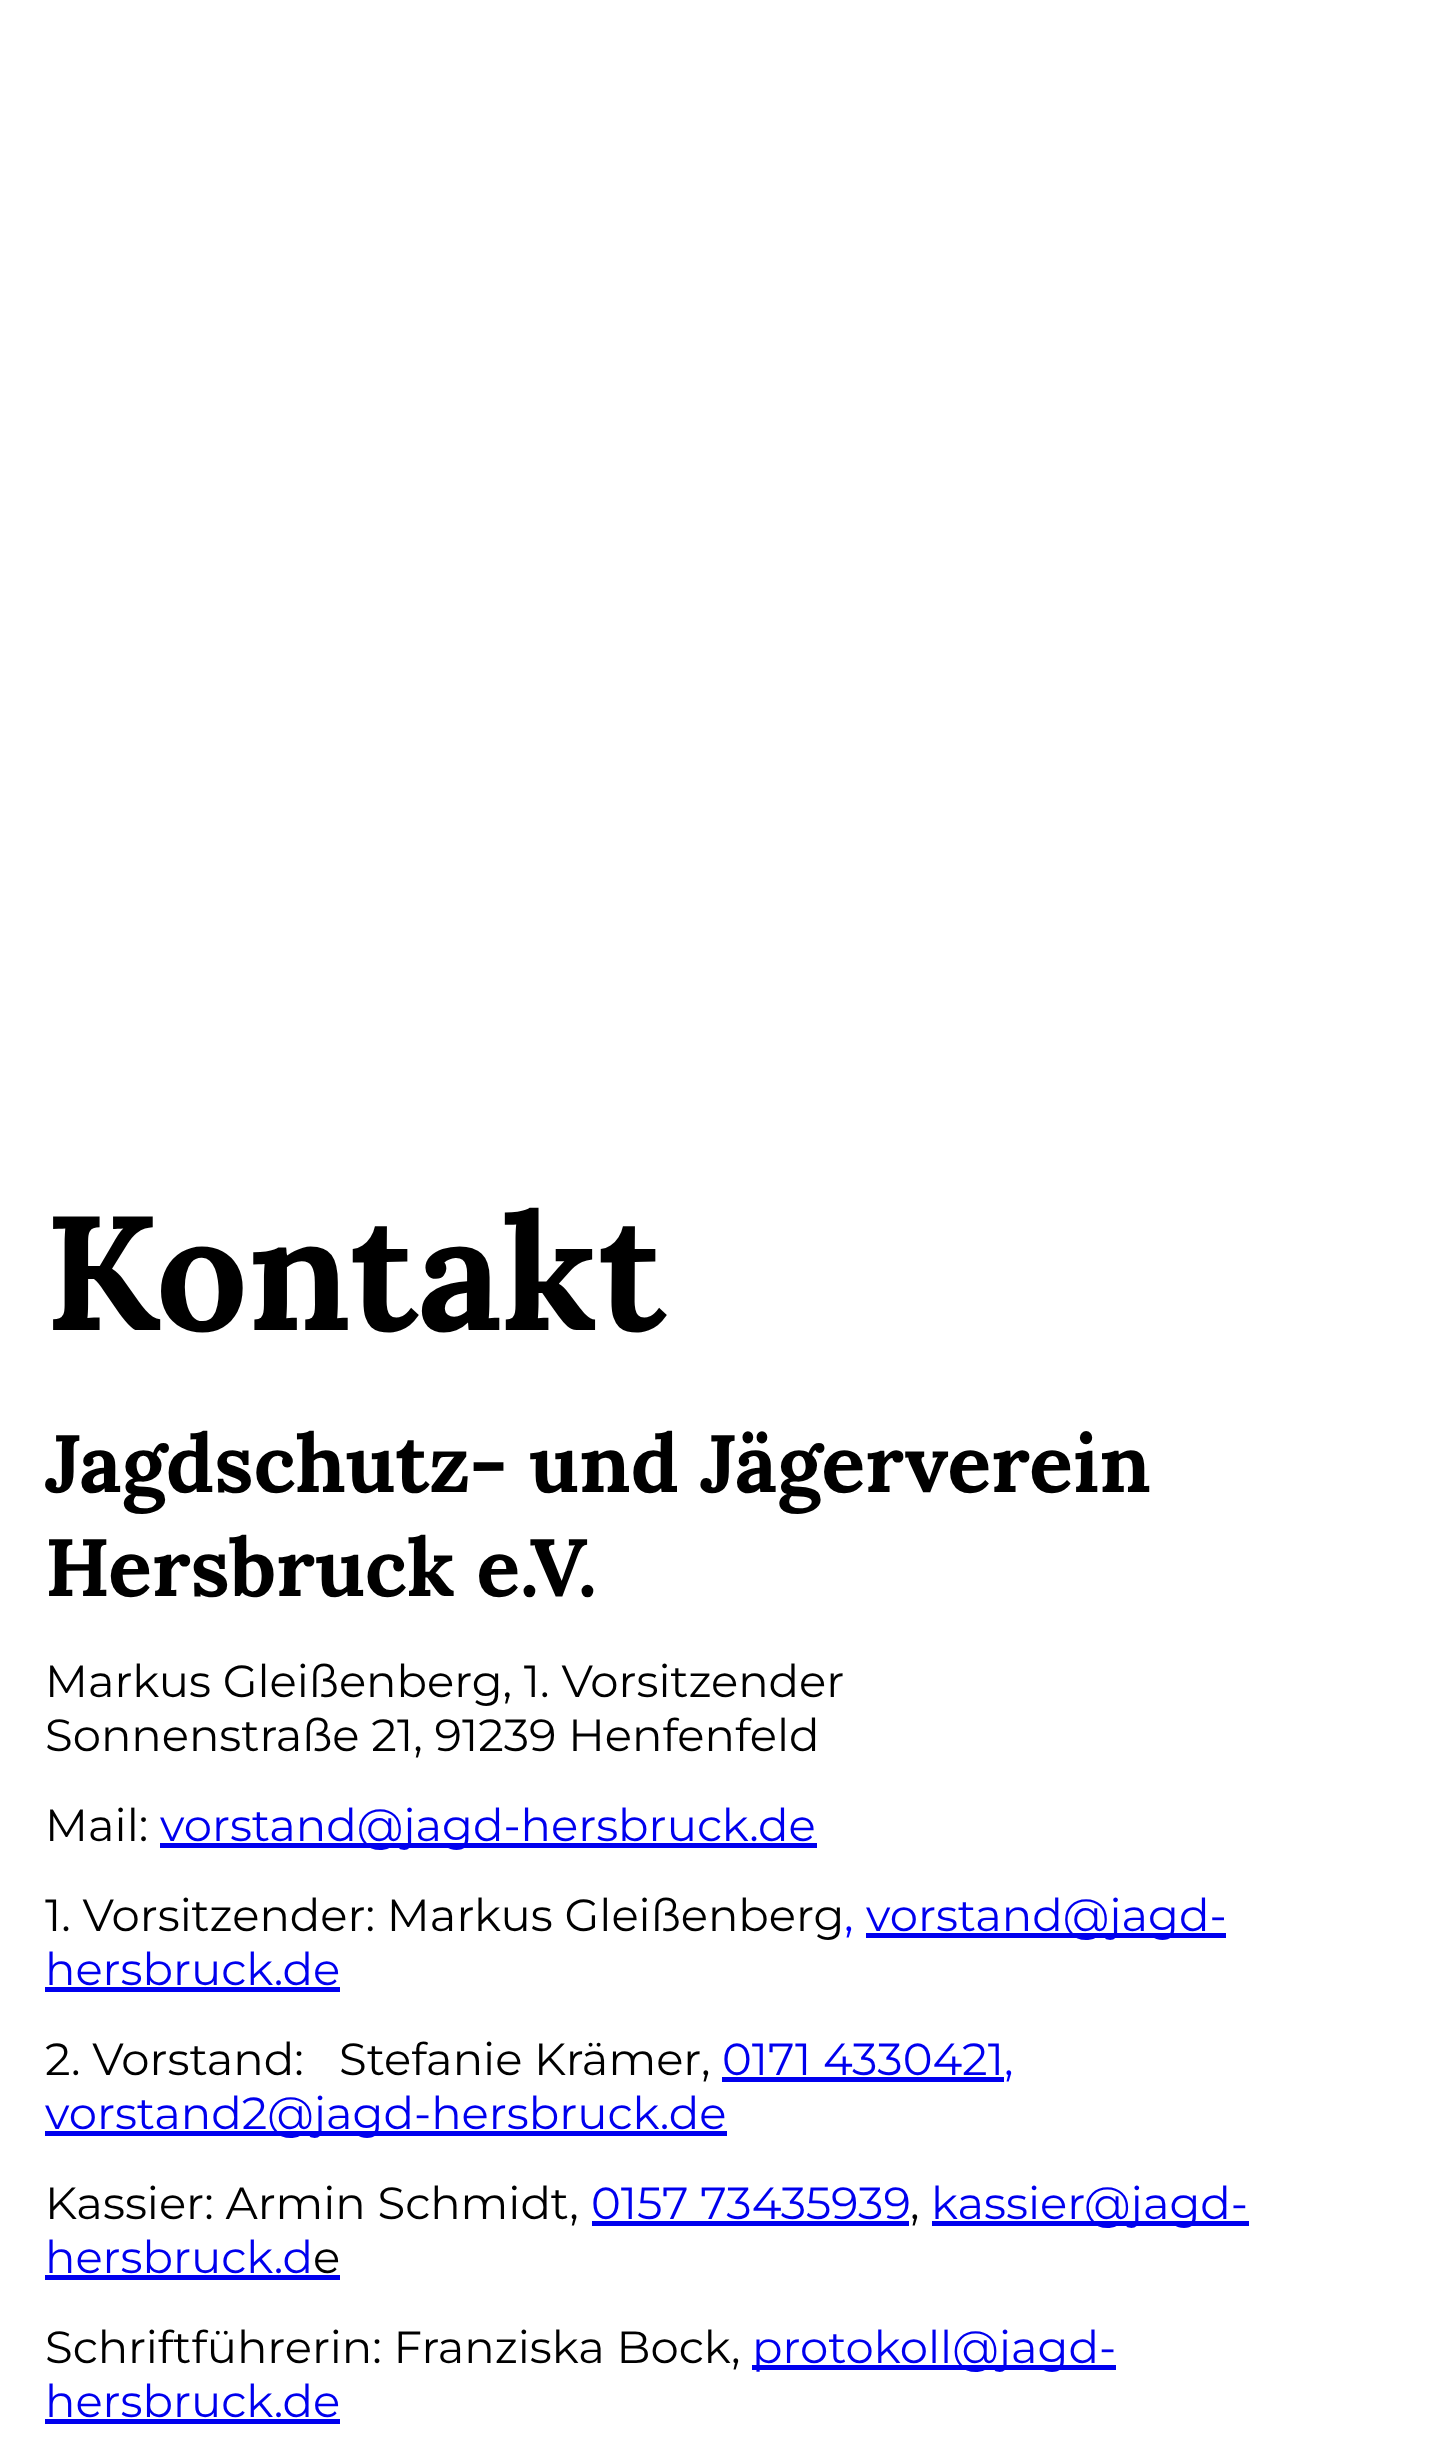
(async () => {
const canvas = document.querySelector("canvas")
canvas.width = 1442
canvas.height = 2457
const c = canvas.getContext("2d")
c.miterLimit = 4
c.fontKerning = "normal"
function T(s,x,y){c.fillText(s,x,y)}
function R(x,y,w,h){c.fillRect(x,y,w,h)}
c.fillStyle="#fff"
R(0,0,1442,2457)
c.font="bold 162px Lora"
c.fillStyle="#000"
T("Kontakt",45,1330)
c.font="bold 81px Lora"
T("Jagdschutz- und Jägerverein",45,1492)
T("Hersbruck e.V.",45,1596)
c.font="45px Montserrat"
T("Markus Gleißenberg, 1. Vorsitzender",45,1697)
T("Sonnenstraße 21, 91239 Henfenfeld",45,1751)
T("Mail:",45,1841)
c.fillStyle="#00e"
R(160,1843,657,5)
T("vorstand@jagd-hersbruck.de",160,1841)
c.fillStyle="#000"
T("1. Vorsitzender: Markus Gleißenberg",45,1931)
c.fillStyle="#00f"
T(",",844,1931)
c.fillStyle="#00e"
R(866,1933,360,5)
T("vorstand@jagd-",866,1931)
T("hersbruck.de",45,1985)
R(45,1987,295,5)
c.fillStyle="#000"
T("2. Vorstand:",45,2075)
T("Stefanie Krämer,",339,2075)
c.fillStyle="#00e"
T("0171 4330421",722,2075)
c.fillStyle="#00f"
T(",",1004,2075)
c.fillStyle="#00e"
R(722,2077,282,5)
R(45,2131,682,5)
T("vorstand2@jagd-hersbruck.de",45,2129)
c.fillStyle="#000"
T("Kassier: Armin Schmidt,",45,2219)
c.fillStyle="#00e"
T("0157 73435939",591,2219)
c.fillStyle="#000"
T(",",910,2219)
c.fillStyle="#00e"
R(592,2221,317,5)
R(932,2221,317,5)
T("kassier@jagd-",931,2219)
T("hersbruck.d",45,2273)
c.fillStyle="#000"
T("e",313,2273)
c.fillStyle="#00e"
R(45,2275,295,5)
c.fillStyle="#000"
T("Schriftführerin: Franziska Bock,",45,2363)
c.fillStyle="#00e"
R(752,2365,364,5)
T("protokoll@jagd-",752,2363)
T("hersbruck.de",45,2417)
R(45,2419,295,5)
})()
